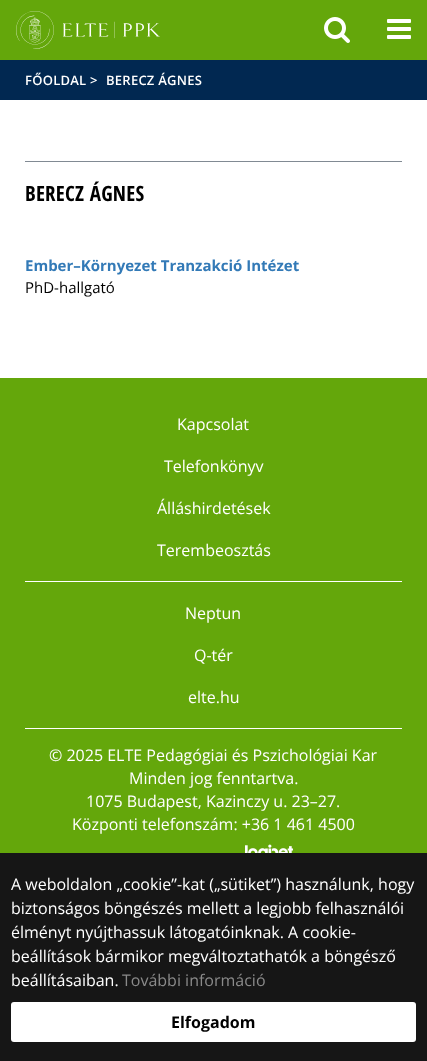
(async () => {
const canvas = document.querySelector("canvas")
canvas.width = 427
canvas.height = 1061
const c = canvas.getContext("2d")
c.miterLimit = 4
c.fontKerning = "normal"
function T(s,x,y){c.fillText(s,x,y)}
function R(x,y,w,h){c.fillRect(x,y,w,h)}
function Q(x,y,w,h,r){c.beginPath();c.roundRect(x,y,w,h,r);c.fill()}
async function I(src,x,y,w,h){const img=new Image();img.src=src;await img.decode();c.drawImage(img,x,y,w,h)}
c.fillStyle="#fff"
R(0,0,427,1061)
c.fillStyle="#64a70b"
R(0,0,427,60)
await I("1.png",16,11,144,38)
await I("2.png",324,17,26,26)
await I("3.png",387,19,24,20)
c.fillStyle="#012851"
R(0,60,427,40)
c.letterSpacing="0.25px"
c.font="600 13px Open Sans"
c.fillStyle="#fff"
T("FŐOLDAL >",25,85)
T("BERECZ ÁGNES",106,85)
c.fillStyle="#818a93"
R(25,161,377,1)
c.font="bold 21px Open Sans Condensed"
c.fillStyle="#000"
T("BERECZ ÁGNES",25,201)
c.letterSpacing="0px"
c.font="bold 15px Open Sans"
c.fillStyle="#337ab7"
T("Ember–Környezet Tranzakció Intézet",25,271)
c.font="15px Open Sans"
c.fillStyle="#000"
T("PhD-hallgató",25,293)
c.fillStyle="#64a70b"
R(0,378,427,475)
c.fillStyle="#fff"
R(25,581,377,1)
c.font="16px Open Sans"
T("Kapcsolat",177,430)
T("Telefonkönyv",164,472)
T("Álláshirdetések",157,514)
T("Terembeosztás",157,556)
R(25,728,377,1)
T("Neptun",185,619)
T("Q-tér",194,661)
T("elte.hu",188,703)
T("© 2025 ELTE Pedagógiai és Pszichológiai Kar",49,761)
T("Minden jog fenntartva.",129,784)
T("1075 Budapest, Kazinczy u. 23–27.",86,807)
T("Központi telefonszám: +36 1 461 4500",72,830)
await I("4.png",245,844,48,9)
c.fillStyle="#161616"
R(0,853,427,208)
c.fillStyle="#fff"
T("A weboldalon „cookie”-kat („sütiket”) használunk, hogy",11,890)
T("biztonságos böngészés mellett a legjobb felhasználói",11,914)
T("élményt nyújthassuk látogatóinknak. A cookie-",11,938)
T("beállítások bármikor megváltoztathatók a böngésző",11,962)
T("beállításaiban.",11,986)
c.fillStyle="#8a8a8a"
T("További információ",122,986)
c.fillStyle="#fff"
Q(11,1002,405,40,3)
c.font="bold 16px Open Sans"
c.fillStyle="#000"
T("Elfogadom",171,1028)
})()
